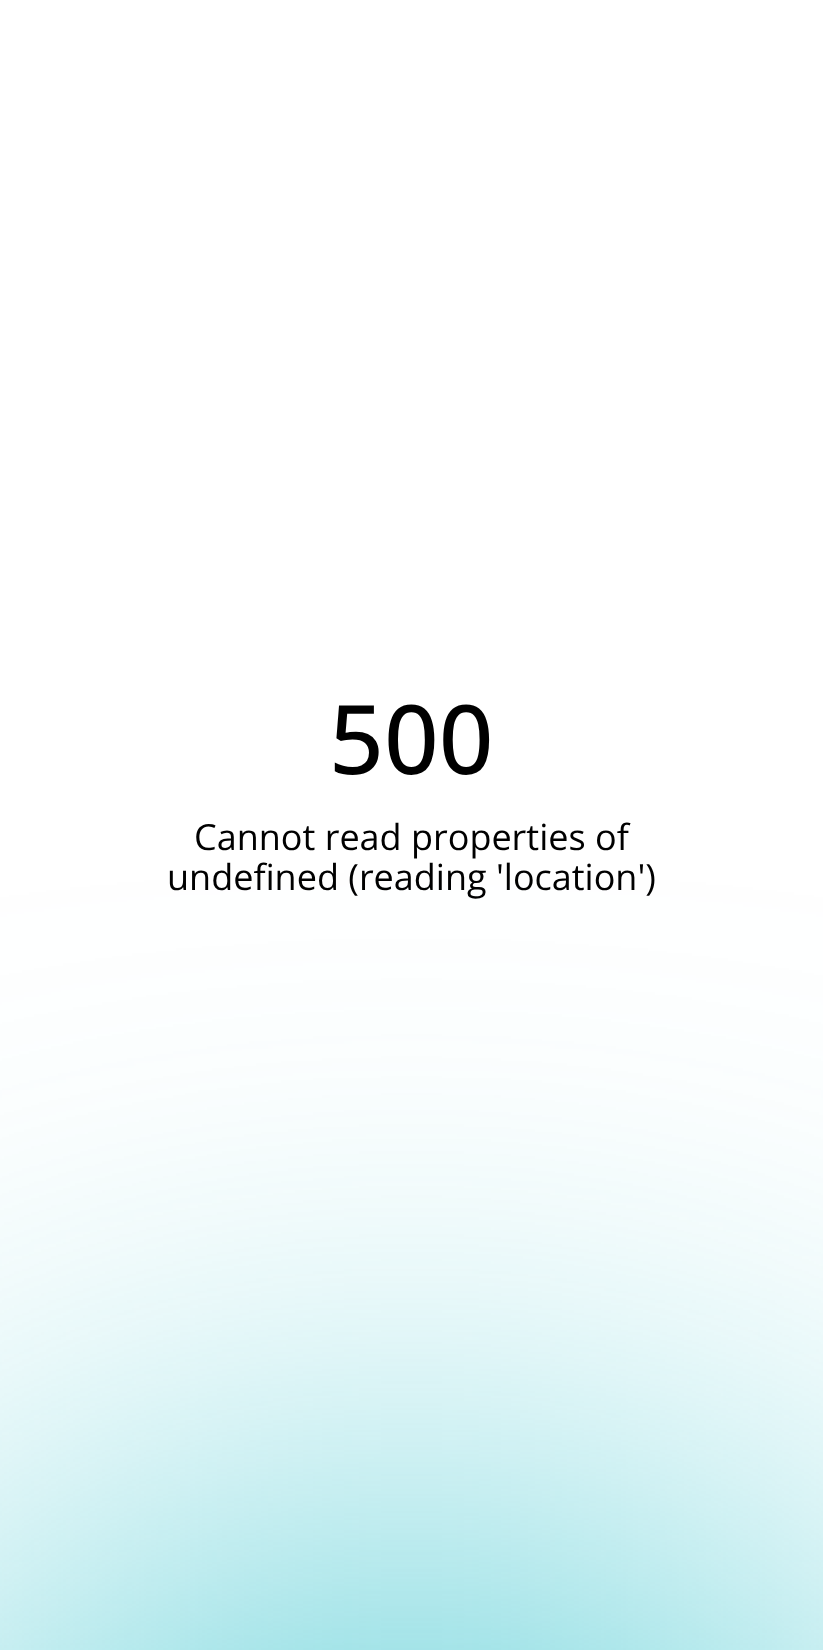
(async () => {
const canvas = document.querySelector("canvas")
canvas.width = 823
canvas.height = 1650
const c = canvas.getContext("2d")
c.miterLimit = 4
c.fontKerning = "normal"
function T(s,x,y){c.fillText(s,x,y)}
function R(x,y,w,h){c.fillRect(x,y,w,h)}
c.fillStyle="#fff"
R(0,0,823,1650)
c.fillStyle="#1bbbc6"
c.filter="blur(330px)"
c.beginPath()
c.rect(0,1650,823,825)
c.fill()
c.filter="none"
c.font="500 96px Open Sans"
c.fillStyle="#000"
T("500",329,774)
c.font="36px Open Sans"
T("Cannot read properties of",194,850)
T("undefined (reading 'location')",167,890)
})()
